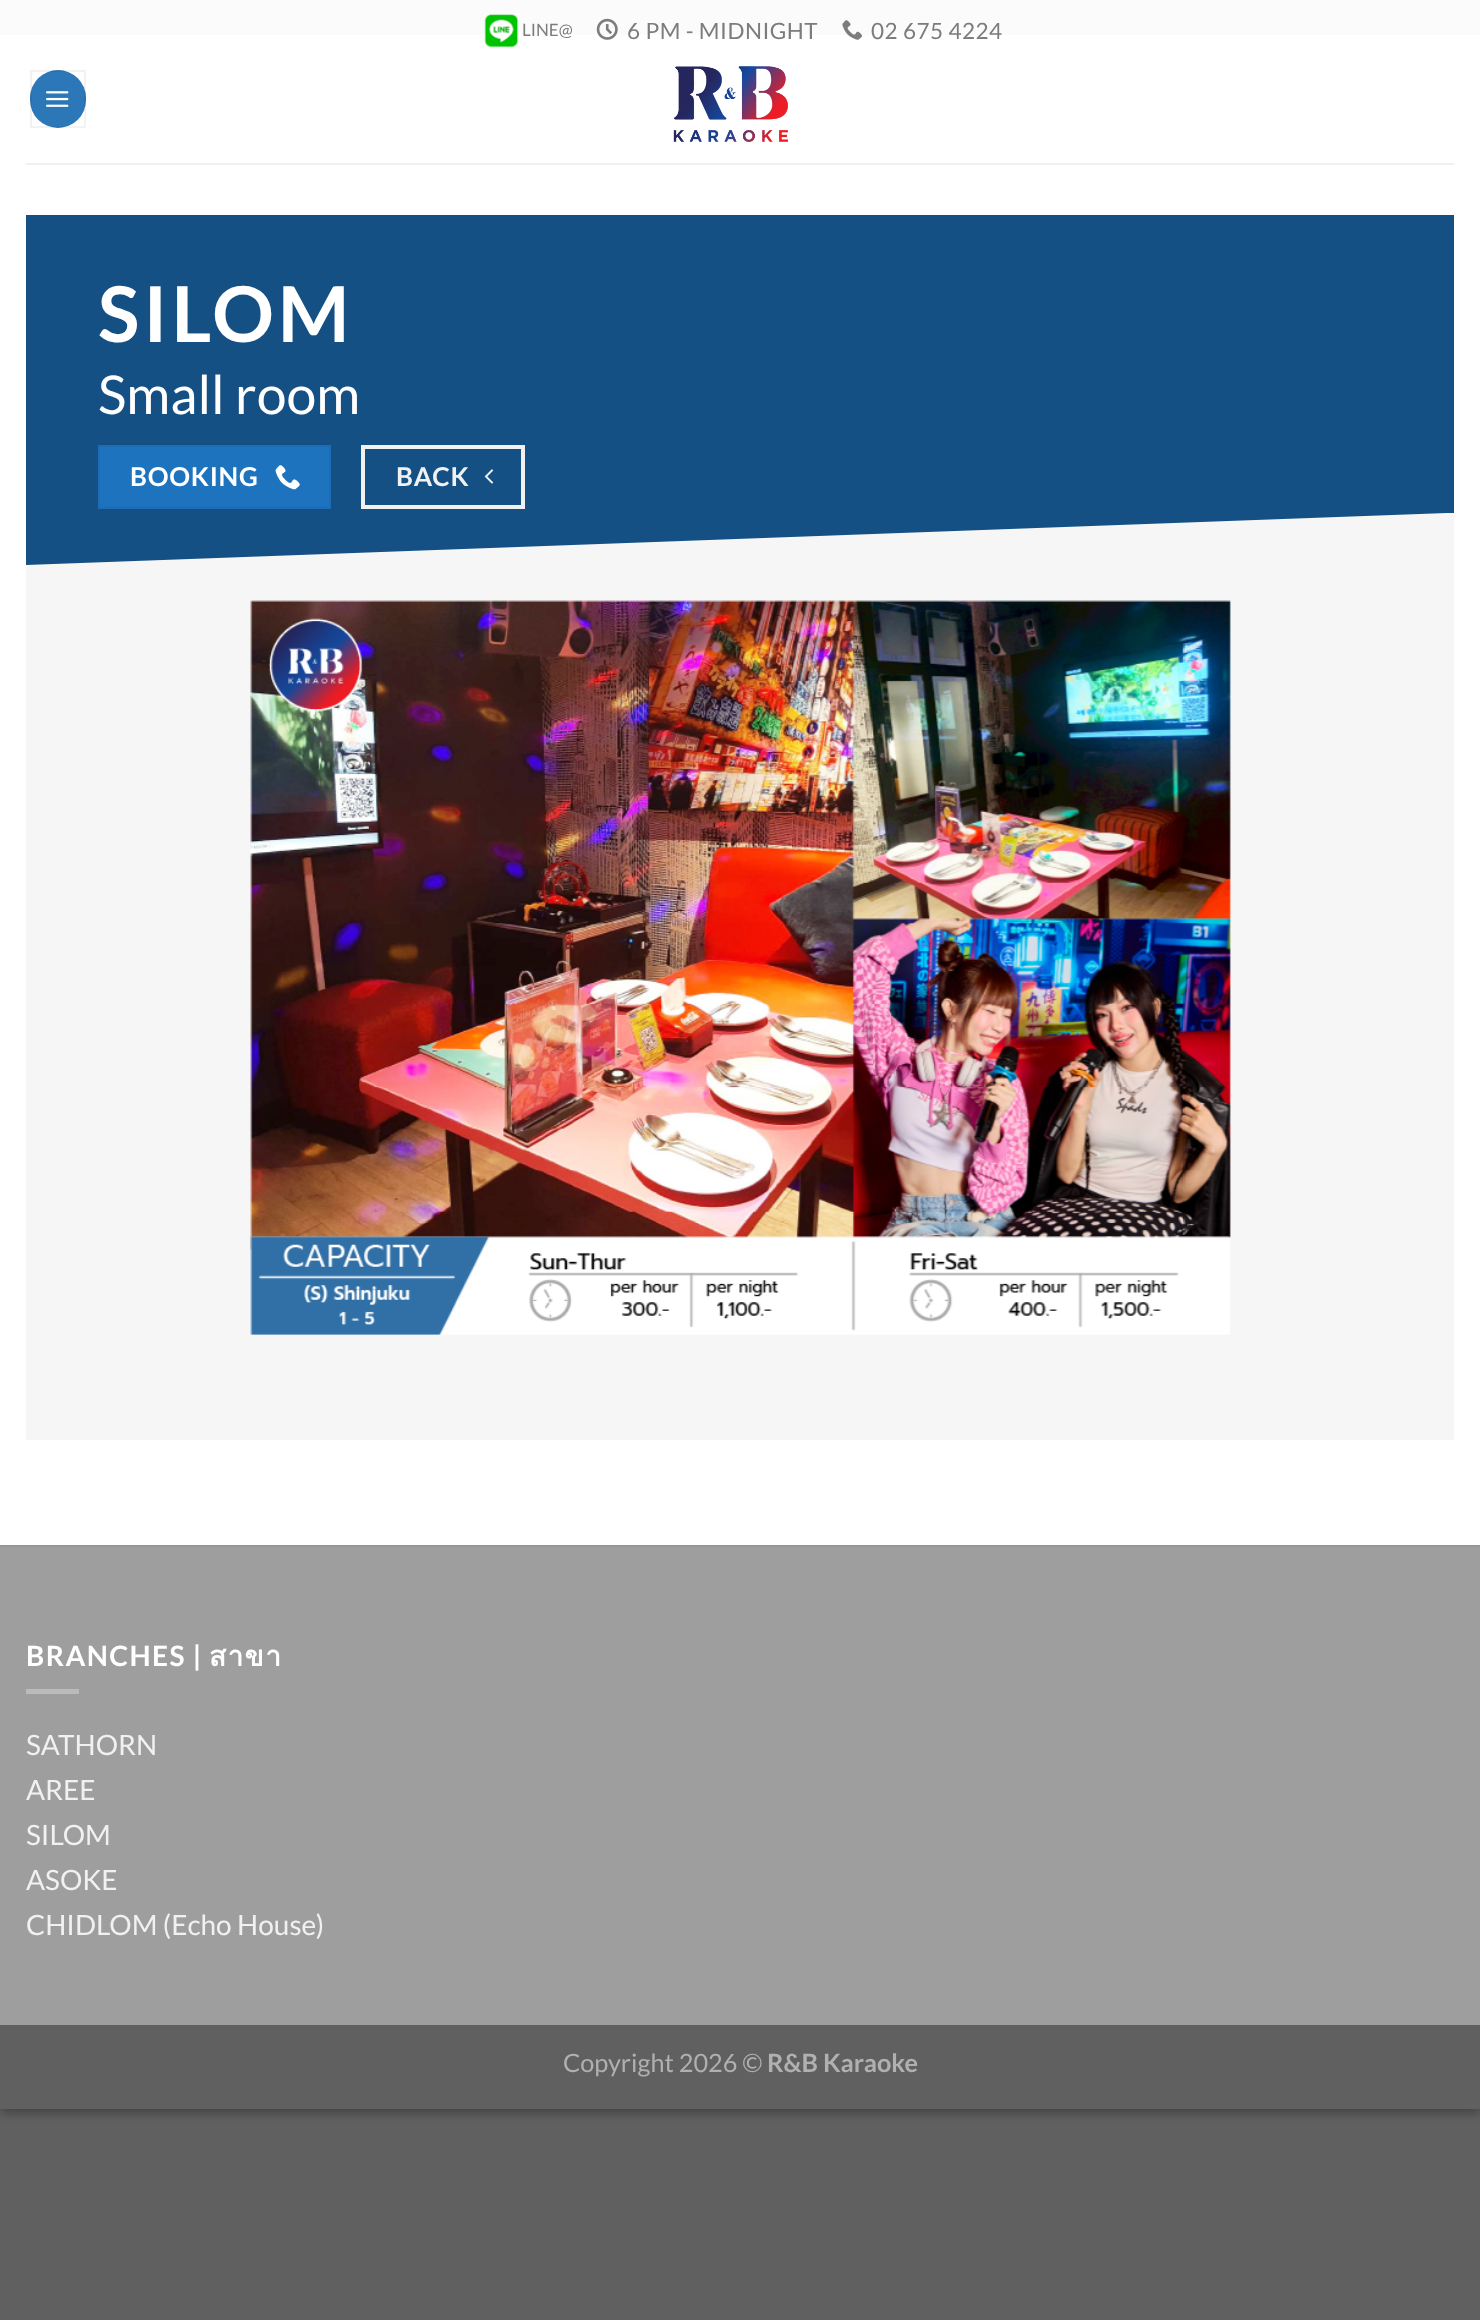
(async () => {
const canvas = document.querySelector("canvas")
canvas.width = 1480
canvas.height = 2320
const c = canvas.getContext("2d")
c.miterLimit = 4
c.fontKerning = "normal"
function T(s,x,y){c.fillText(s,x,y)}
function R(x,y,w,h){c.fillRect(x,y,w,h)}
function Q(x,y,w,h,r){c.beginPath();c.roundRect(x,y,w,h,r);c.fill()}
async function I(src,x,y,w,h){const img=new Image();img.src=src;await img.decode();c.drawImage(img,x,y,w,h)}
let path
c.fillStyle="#606060"
R(0,0,1480,2320)
c.fillStyle="#0000003b"
c.filter="blur(5px)"
c.beginPath()
c.rect(0,5,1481,2109)
c.fill()
c.filter="none"
c.fillStyle="#00000029"
c.filter="blur(5px)"
c.beginPath()
c.rect(7,12,1467,2095)
c.fill()
c.filter="none"
c.fillStyle="#fff"
R(0,35,1480,1510)
c.fillStyle="#fbfbfb"
R(0,0,1480,35)
await I("1.png",484,14,35,34)
c.font="17px Lato"
c.fillStyle="#7c7c7c"
T("LINE@",522,36)
await I("2.png",596,18,22,22)
c.letterSpacing="0.5px"
c.font="22.5px Lato"
T("6 PM - MIDNIGHT",627,39)
await I("3.png",842,20,20,20)
T("02 675 4224",871,39)
c.fillStyle="#2c77b8"
Q(30,70,56,58,28)
c.strokeStyle="#0000000d"
c.lineWidth=2
c.strokeRect(31,71,54,56)
await I("4.png",46,91,23,16)
await I("5.png",673,66,115,76)
c.fillStyle="#f1f1f1"
R(26,163,1428,2)
c.fillStyle="#155084"
R(26,215,1428,350)
c.letterSpacing="4px"
c.font="bold 77px Lato"
c.fillStyle="#fff"
T("SILOM",98,342)
c.letterSpacing="0px"
c.font="53.5px Lato"
T("Small room",98,414)
c.fillStyle="#1e73be"
c.beginPath()
c.rect(99,446,231,62)
c.fill()
c.strokeStyle="#1d6db5"
c.stroke()
c.letterSpacing="0.75px"
c.font="bold 26px Lato"
c.fillStyle="#fff"
T("BOOKING",130,486)
await I("6.png",275,465,25,25)
c.strokeStyle="#f1f1f1"
c.lineWidth=4
c.strokeRect(363,447,160,60)
c.fillStyle="#f1f1f1"
T("BACK",396,486)
await I("7.png",484,469,10,15)
c.fillStyle="#f6f6f6"
path = new Path2D("M26 565v875h1428v-927h-7z")
c.fill(path)
await I("8.png",250,600,981,735)
c.fillStyle="#9e9e9e"
R(0,1547,1480,478)
c.fillStyle="#969696"
R(0,1545,1480,2)
c.letterSpacing="1.4px"
c.font="bold 28px Lato"
c.fillStyle="#fff"
T("BRANCHES |",26,1666)
c.font="bold 28px Loma"
T("สาขา",209,1666)
c.fillStyle="#bbb"
R(26,1689,53,5)
c.letterSpacing="0px"
c.font="28px Lato"
c.fillStyle="#f1f1f1"
T("SATHORN",26,1755)
T("AREE",26,1800)
T("SILOM",26,1845)
T("ASOKE",26,1890)
T("CHIDLOM (Echo House)",26,1935)
c.fillStyle="#606060"
R(0,2025,1480,84)
c.font="25.25px Lato"
c.fillStyle="#b0b0b0"
T("Copyright 2026 ©",563,2072)
c.font="bold 25.25px Lato"
T("R&B Karaoke",767,2072)
})()
